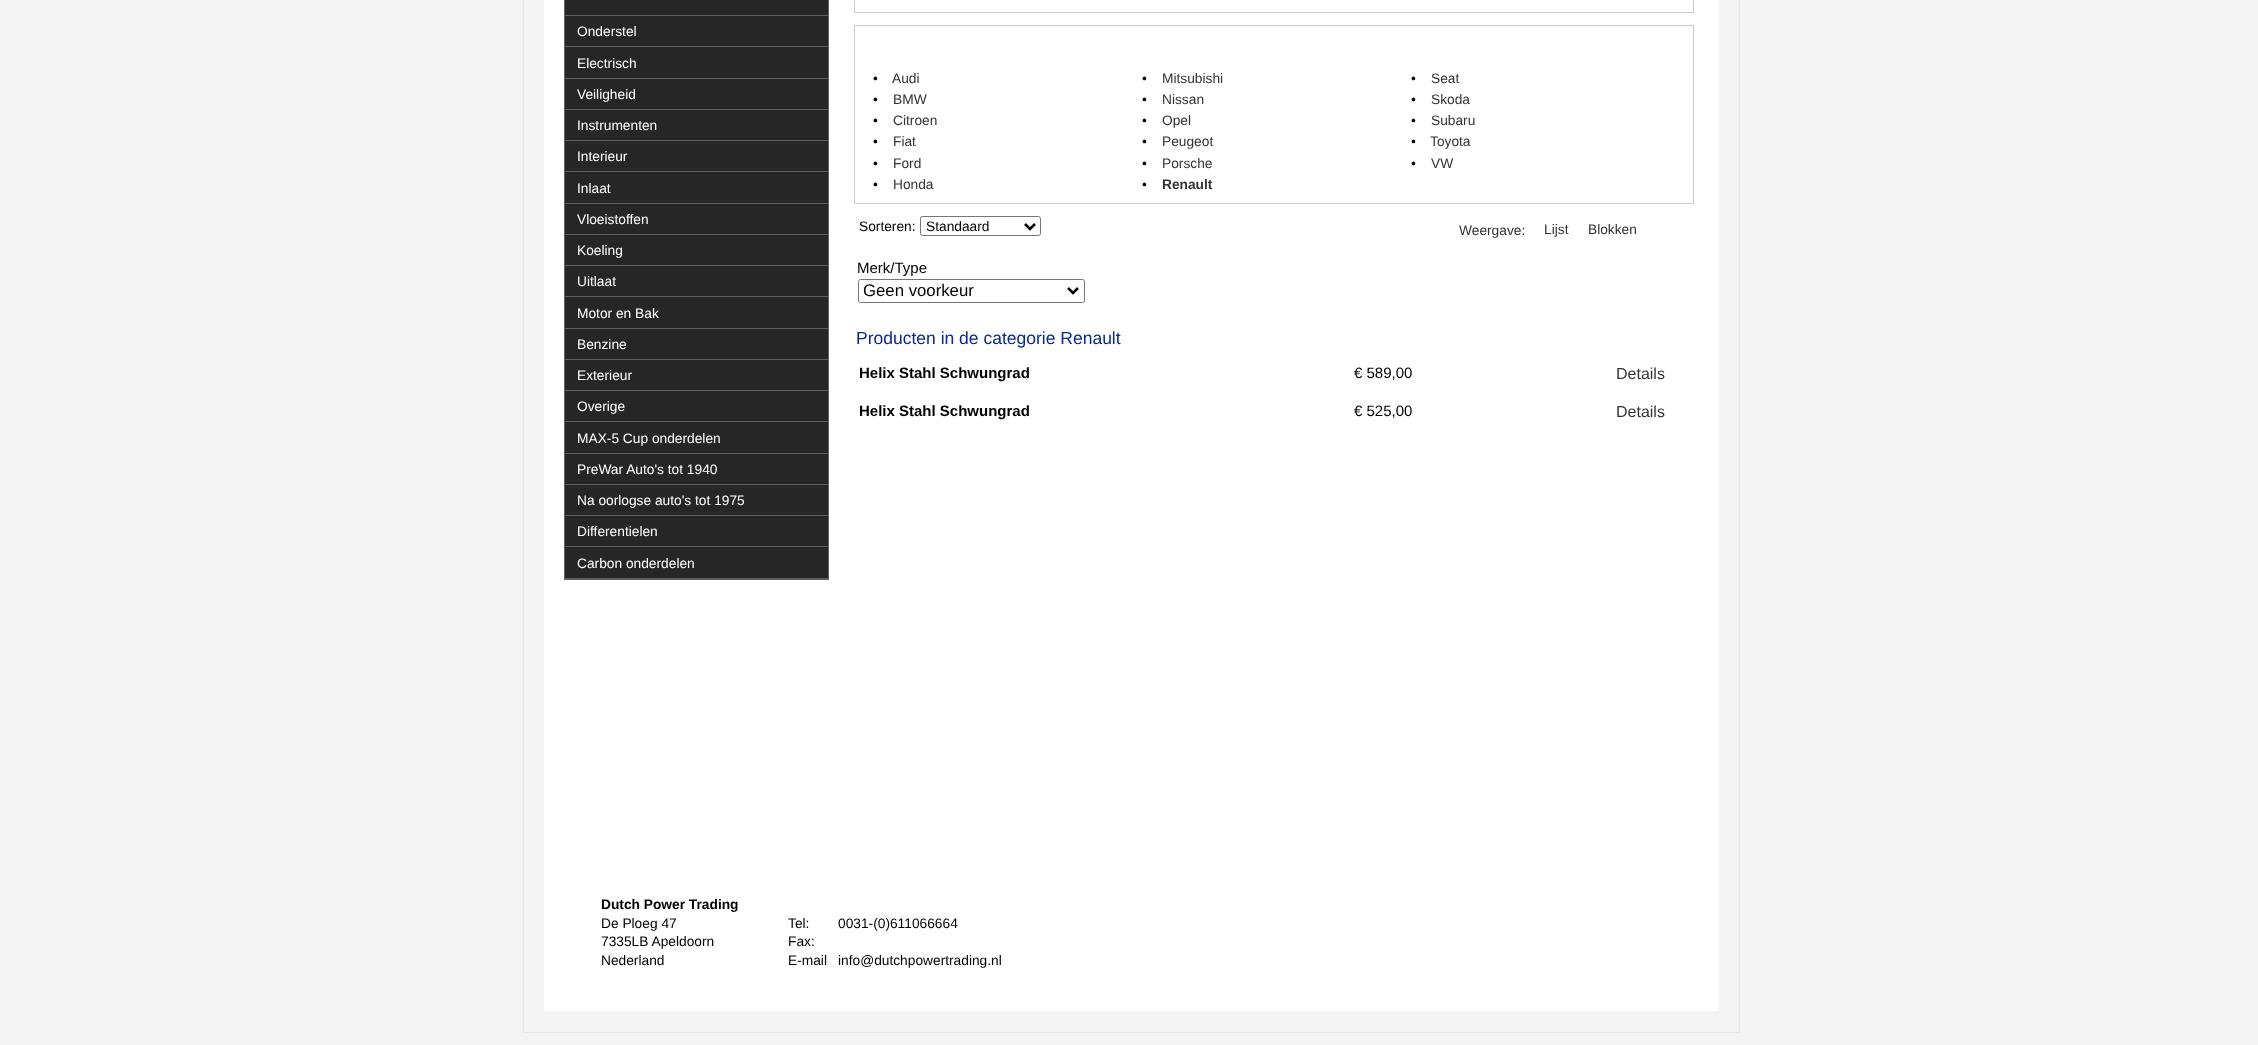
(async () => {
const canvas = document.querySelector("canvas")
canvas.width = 2258
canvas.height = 1045
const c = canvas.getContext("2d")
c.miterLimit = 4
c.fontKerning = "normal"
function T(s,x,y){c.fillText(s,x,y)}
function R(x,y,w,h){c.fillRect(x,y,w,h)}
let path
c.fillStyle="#f3f4f3"
R(0,0,2258,1045)
c.strokeStyle="#e9e9e9"
c.strokeRect(523.5,-.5,1216,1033)
c.fillStyle="#fff"
R(544,0,1175,1011)
c.strokeStyle="#606060"
c.strokeRect(564.5,-.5,264,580)
c.fillStyle="#262626"
R(565,0,263,15)
c.fillStyle="#606060"
R(564,15,265,1)
c.fillStyle="#262626"
R(565,16,263,62)
c.fillStyle="#606060"
R(564,46,265,1)
c.font="13.75px Liberation Sans"
c.fillStyle="#fff"
T("Onderstel",577,36)
c.fillStyle="#606060"
R(564,78,265,1)
c.fillStyle="#fff"
T("Electrisch",577,68)
c.fillStyle="#262626"
R(565,79,263,30)
c.fillStyle="#606060"
R(564,109,265,1)
c.fillStyle="#fff"
T("Veiligheid",577,99)
c.fillStyle="#262626"
R(565,110,263,30)
c.fillStyle="#606060"
R(564,140,265,1)
c.fillStyle="#fff"
T("Instrumenten",577,130)
c.fillStyle="#262626"
R(565,141,263,62)
c.fillStyle="#606060"
R(564,171,265,1)
c.fillStyle="#fff"
T("Interieur",577,161)
c.fillStyle="#606060"
R(564,203,265,1)
c.fillStyle="#fff"
T("Inlaat",577,193)
c.fillStyle="#262626"
R(565,204,263,30)
c.fillStyle="#606060"
R(564,234,265,1)
c.fillStyle="#fff"
T("Vloeistoffen",577,224)
c.fillStyle="#262626"
R(565,235,263,30)
c.fillStyle="#606060"
R(564,265,265,1)
c.fillStyle="#fff"
T("Koeling",577,255)
c.fillStyle="#262626"
R(565,266,263,62)
c.fillStyle="#606060"
R(564,296,265,1)
c.fillStyle="#fff"
T("Uitlaat",577,286)
c.fillStyle="#606060"
R(564,328,265,1)
c.fillStyle="#fff"
T("Motor en Bak",577,318)
c.fillStyle="#262626"
R(565,329,263,30)
c.fillStyle="#606060"
R(564,359,265,1)
c.fillStyle="#fff"
T("Benzine",577,349)
c.fillStyle="#262626"
R(565,360,263,30)
c.fillStyle="#606060"
R(564,390,265,1)
c.fillStyle="#fff"
T("Exterieur",577,380)
c.fillStyle="#262626"
R(565,391,263,62)
c.fillStyle="#606060"
R(564,421,265,1)
c.fillStyle="#fff"
T("Overige",577,411)
c.fillStyle="#606060"
R(564,453,265,1)
c.fillStyle="#fff"
T("MAX-5 Cup onderdelen",577,443)
c.fillStyle="#262626"
R(565,454,263,30)
c.fillStyle="#606060"
R(564,484,265,1)
c.fillStyle="#fff"
T("PreWar Auto's tot 1940",577,474)
c.fillStyle="#262626"
R(565,485,263,30)
c.fillStyle="#606060"
R(564,515,265,1)
c.fillStyle="#fff"
T("Na oorlogse auto's tot 1975",577,505)
c.fillStyle="#262626"
R(565,516,263,62)
c.fillStyle="#606060"
R(564,546,265,1)
c.fillStyle="#fff"
T("Differentielen",577,536)
c.fillStyle="#606060"
R(564,578,265,1)
c.fillStyle="#fff"
T("Carbon onderdelen",577,568)
c.strokeStyle="#ccc"
c.strokeRect(854.5,-.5,839,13)
c.strokeRect(854.5,25.5,839,178)
c.fillStyle="#000"
T("•",873,83)
c.fillStyle="#333"
T("Audi",892,83)
c.fillStyle="#000"
T("•",873,104)
c.fillStyle="#333"
T("BMW",893,104)
c.fillStyle="#000"
T("•",873,125)
c.fillStyle="#333"
T("Citroen",893,125)
c.fillStyle="#000"
T("•",873,146)
c.fillStyle="#333"
T("Fiat",893,146)
c.fillStyle="#000"
T("•",873,168)
c.fillStyle="#333"
T("Ford",893,168)
c.fillStyle="#000"
T("•",873,189)
c.fillStyle="#333"
T("Honda",893,189)
c.fillStyle="#000"
T("•",1142,83)
c.fillStyle="#333"
T("Mitsubishi",1162,83)
c.fillStyle="#000"
T("•",1142,104)
c.fillStyle="#333"
T("Nissan",1162,104)
c.fillStyle="#000"
T("•",1142,125)
c.fillStyle="#333"
T("Opel",1162,125)
c.fillStyle="#000"
T("•",1142,146)
c.fillStyle="#333"
T("Peugeot",1162,146)
c.fillStyle="#000"
T("•",1142,168)
c.fillStyle="#333"
T("Porsche",1162,168)
c.fillStyle="#000"
T("•",1142,189)
c.font="bold 13.75px Liberation Sans"
c.fillStyle="#333"
T("Renault",1162,189)
c.font="13.75px Liberation Sans"
c.fillStyle="#000"
T("•",1411,83)
c.fillStyle="#333"
T("Seat",1431,83)
c.fillStyle="#000"
T("•",1411,104)
c.fillStyle="#333"
T("Skoda",1431,104)
c.fillStyle="#000"
T("•",1411,125)
c.fillStyle="#333"
T("Subaru",1431,125)
c.fillStyle="#000"
T("•",1411,146)
c.fillStyle="#333"
T("Toyota",1430,146)
c.fillStyle="#000"
T("•",1411,168)
c.fillStyle="#333"
T("VW",1431,168)
c.fillStyle="#000"
T("Sorteren:",859,231)
c.beginPath()
c.roundRect(920.5,216.5,120,19,2)
c.strokeStyle="#767676"
c.stroke()
path = new Path2D("M1025 224l5 5l5-5")
c.strokeStyle="#000"
c.lineWidth=2.5
c.stroke(path)
T("Standaard",926,231)
c.fillStyle="#333"
T("Weergave:",1459,235)
T("Lijst",1544,234)
T("Blokken",1588,234)
c.font="15px Liberation Sans"
c.fillStyle="#000"
T("Merk/Type",857,273)
c.beginPath()
c.roundRect(858.5,279.5,226,23,2)
c.strokeStyle="#767676"
c.lineWidth=1
c.stroke()
path = new Path2D("M1068 288l5 5l5-5")
c.strokeStyle="#000"
c.lineWidth=2.5
c.stroke(path)
c.font="16.75px Liberation Sans"
T("Geen voorkeur",863,296)
c.font="17.5px Liberation Sans"
c.fillStyle="#0c278d"
T("Producten in de categorie Renault",856,344)
c.font="bold 15px Liberation Sans"
c.fillStyle="#000"
T("Helix Stahl Schwungrad",859,378)
c.font="15px Liberation Sans"
T("€ 589,00",1354,378)
c.font="16px Liberation Sans"
c.fillStyle="#333"
T("Details",1616,379)
c.font="bold 15px Liberation Sans"
c.fillStyle="#000"
T("Helix Stahl Schwungrad",859,416)
c.font="15px Liberation Sans"
T("€ 525,00",1354,416)
c.font="16px Liberation Sans"
c.fillStyle="#333"
T("Details",1616,417)
c.font="bold 13.75px Liberation Sans"
c.fillStyle="#000"
T("Dutch Power Trading",601,909)
c.font="13.75px Liberation Sans"
T("De Ploeg 47",601,928)
T("7335LB Apeldoorn",601,946)
T("Nederland",601,965)
T("Tel:",788,928)
T("Fax:",788,946)
T("E-mail",788,965)
T("0031-(0)611066664",838,928)
T("info@dutchpowertrading.nl",838,965)
})()
